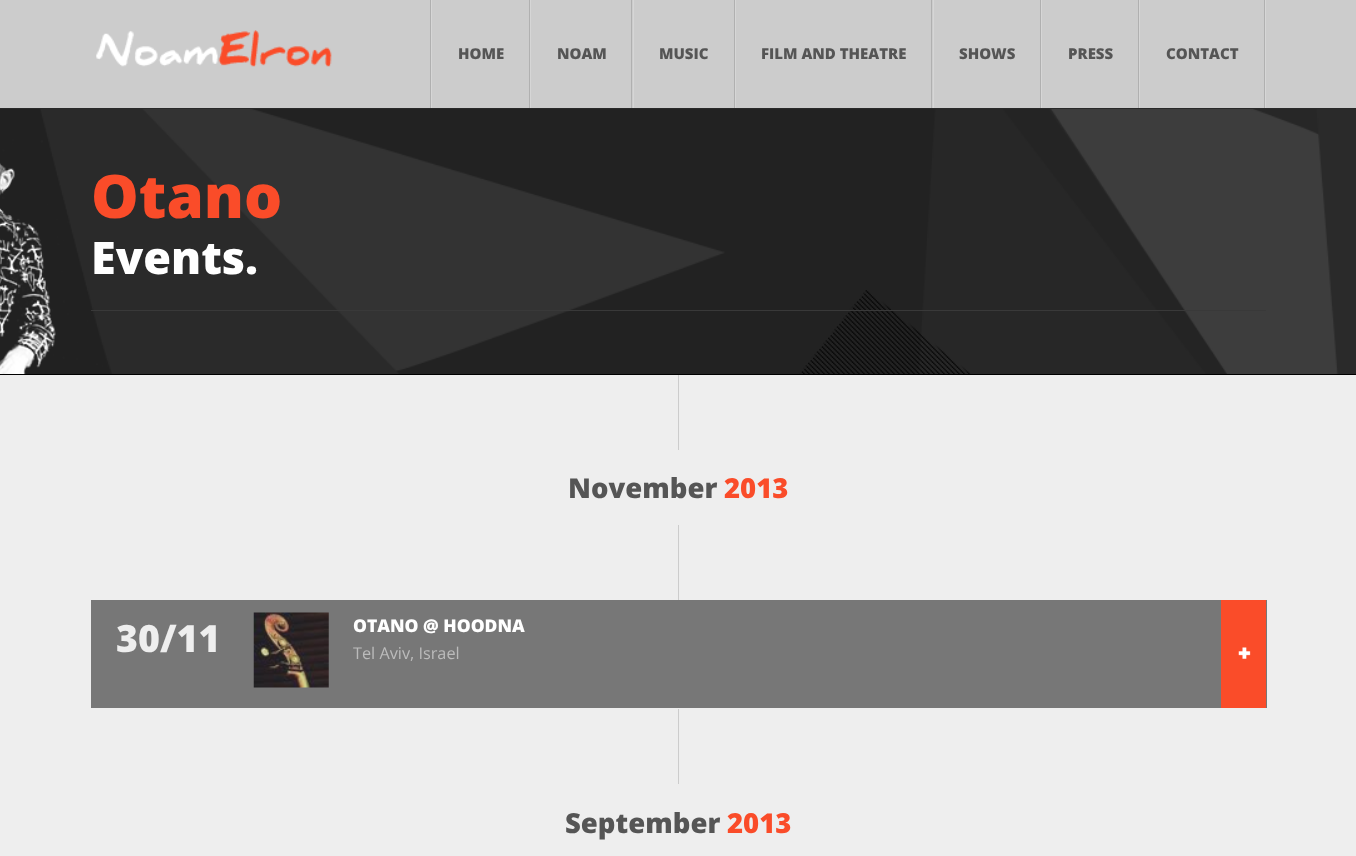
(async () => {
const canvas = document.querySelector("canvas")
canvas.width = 1356
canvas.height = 856
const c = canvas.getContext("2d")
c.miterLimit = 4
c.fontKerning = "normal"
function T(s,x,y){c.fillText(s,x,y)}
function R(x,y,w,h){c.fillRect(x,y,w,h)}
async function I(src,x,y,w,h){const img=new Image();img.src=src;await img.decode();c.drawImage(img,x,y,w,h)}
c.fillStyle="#eee"
R(0,0,1356,856)
c.fillStyle="#ccc"
R(0,0,1356,108)
await I("1.png",96,30,236,37)
c.fillStyle="#d6d6d6"
R(1265,0,1,108)
c.fillStyle="#b0b0b0"
R(430,0,1,108)
R(529,0,1,108)
c.fillStyle="#d6d6d6"
R(431,0,1,108)
c.font="800 15px Open Sans"
c.fillStyle="#555"
T("HOME",458,59)
c.fillStyle="#b0b0b0"
R(631,0,1,108)
c.fillStyle="#d6d6d6"
R(530,0,1,108)
c.fillStyle="#555"
T("NOAM",557,59)
c.fillStyle="#b0b0b0"
R(734,0,1,108)
c.fillStyle="#d6d6d6"
R(633,0,1,108)
c.fillStyle="#555"
T("MUSIC",659,59)
c.fillStyle="#b0b0b0"
R(931,0,1,108)
c.fillStyle="#d6d6d6"
R(735,0,1,108)
c.fillStyle="#555"
T("FILM AND THEATRE",761,59)
c.fillStyle="#b0b0b0"
R(1040,0,1,108)
c.fillStyle="#d6d6d6"
R(933,0,1,108)
c.fillStyle="#555"
T("SHOWS",959,59)
c.fillStyle="#b0b0b0"
R(1138,0,1,108)
c.fillStyle="#d6d6d6"
R(1041,0,1,108)
c.fillStyle="#555"
T("PRESS",1068,59)
c.fillStyle="#b0b0b0"
R(1264,0,1,108)
c.fillStyle="#d6d6d6"
R(1139,0,1,108)
c.fillStyle="#555"
T("CONTACT",1166,59)
await I("2.png",0,109,1356,265)
c.fillStyle="#292929"
R(0,108,1356,1)
c.fillStyle="#000"
R(0,374,1356,1)
c.font="800 60px Open Sans"
c.fillStyle="#fa4c29"
T("Otano",91,218)
c.font="800 45px Open Sans"
c.fillStyle="#fff"
T("Events.",91,274)
c.fillStyle="#393939"
R(91,310,1175,1)
c.fillStyle="#ccc"
R(678,375,1,75)
c.font="800 27.5px Open Sans"
c.fillStyle="#555"
T("November",568,498)
c.fillStyle="#fa4c29"
T("2013",724,498)
c.fillStyle="#ccc"
R(678,525,1,75)
c.fillStyle="#777"
R(91,600,1176,108)
c.font="800 37.5px Open Sans"
c.fillStyle="#eee"
T("30/11",116,652)
await I("3.png",253,612,76,76)
c.font="800 17.5px Open Sans"
c.fillStyle="#fff"
T("OTANO @ HOODNA",353,632)
c.font="16.25px Open Sans"
c.fillStyle="#bbb"
T("Tel Aviv, Israel",353,659)
c.fillStyle="#fa4c29"
R(1221,600,45,108)
await I("4.png",1238,647,13,12)
c.fillStyle="#ccc"
R(678,709,1,75)
c.font="800 27.5px Open Sans"
c.fillStyle="#555"
T("September",565,833)
c.fillStyle="#fa4c29"
T("2013",727,833)
})()
